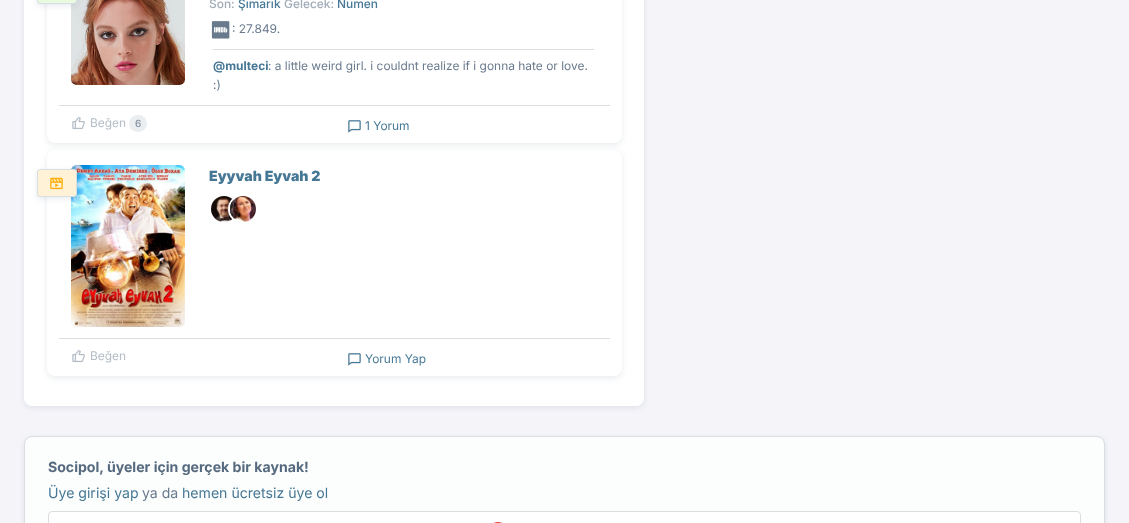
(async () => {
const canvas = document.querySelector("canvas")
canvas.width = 1129
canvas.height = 523
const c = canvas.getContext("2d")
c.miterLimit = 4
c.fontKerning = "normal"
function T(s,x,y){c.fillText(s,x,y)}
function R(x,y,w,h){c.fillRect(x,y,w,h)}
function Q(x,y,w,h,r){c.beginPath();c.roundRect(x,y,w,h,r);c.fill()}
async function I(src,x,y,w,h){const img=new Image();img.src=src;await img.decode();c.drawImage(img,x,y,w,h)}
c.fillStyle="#f5f5f9"
R(0,0,1129,523)
c.fillStyle="#4359711f"
c.filter="blur(3px)"
c.beginPath()
c.roundRect(24,-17,620,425,8)
c.fill()
c.filter="none"
c.fillStyle="#fff"
Q(24,-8,620,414,8)
c.fillStyle="#4359711f"
c.filter="blur(3px)"
c.beginPath()
c.roundRect(47,-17,575,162,8)
c.fill()
c.filter="none"
c.fillStyle="#fff"
Q(47,-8,575,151,8)
await I("1.png",71,0,114,85)
c.fillStyle="#4359711f"
c.filter="blur(3px)"
c.beginPath()
c.roundRect(37,-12,40,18,3)
c.fill()
c.filter="none"
c.fillStyle="#e8fadf"
c.beginPath()
c.roundRect(37.5,-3.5,39,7,2.5)
c.fill()
c.strokeStyle="#d9dee3"
c.stroke()
c.font="500 11.95px Inter"
c.fillStyle="#a1acb8"
T("Son:",209,8)
c.fillStyle="#467896"
T("Şımarık",238,8)
c.fillStyle="#a1acb8"
T("Gelecek:",284,8)
c.fillStyle="#467896"
T("Numen",337,8)
await I("2.png",211,21,19,18)
c.font="11.95px Inter"
c.fillStyle="#697a8d"
T(": 27.849.",232,33)
c.fillStyle="#d9dee3"
R(213,49,381,1)
c.font="bold 11.95px Inter"
c.fillStyle="#467896"
T("@multeci",213,70)
c.font="11.95px Inter"
c.fillStyle="#697a8d"
T(": a little weird girl. i couldnt realize if i gonna hate or love.",268,70)
T(":)",213,89)
c.fillStyle="#d9dee3"
R(59,105,551,1)
await I("3.png",72,117,13,13)
c.fillStyle="#b4bdc6"
T("Beğen",90,127)
c.fillStyle="#ebeef0"
Q(129,115,18,17,8.5)
c.font="500 10px Inter"
c.fillStyle="#8592a3"
T("6",135,127)
await I("4.png",348,120,13,13)
c.font="11.95px Inter"
c.fillStyle="#467896"
T("1 Yorum",365,130)
c.fillStyle="#4359711f"
c.filter="blur(3px)"
c.beginPath()
c.roundRect(47,152,575,226,8)
c.fill()
c.filter="none"
c.fillStyle="#fff"
Q(47,150,575,226,8)
await I("6.png",71,165,114,162)
c.fillStyle="#4359711f"
c.filter="blur(3px)"
c.beginPath()
c.roundRect(37,171,40,28,3)
c.fill()
c.filter="none"
c.fillStyle="#fff2d6"
c.beginPath()
c.roundRect(37.5,169.5,39,27,2.5)
c.fill()
c.stroke()
await I("5.png",50,177,13,13)
c.font="900 14.1px Inter"
c.fillStyle="#467896"
T("Eyyvah Eyvah 2",209,181)
await I("7.png",211,196,23,26)
c.beginPath()
c.arc(243,209,14,0,7)
c.strokeStyle="#fff"
c.lineWidth=2
c.stroke()
await I("8.png",230,196,26,26)
c.fillStyle="#d9dee3"
R(59,338,551,1)
await I("3.png",72,350,13,13)
c.font="11.95px Inter"
c.fillStyle="#b4bdc6"
T("Beğen",90,360)
await I("4.png",348,353,13,13)
c.fillStyle="#467896"
T("Yorum Yap",365,363)
c.fillStyle="#4359711f"
c.filter="blur(3px)"
c.beginPath()
c.roundRect(24,438,1081,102,8)
c.fill()
c.filter="none"
c.fillStyle="#fcfdfd"
Q(25,437,1079,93,7)
c.beginPath()
c.roundRect(24.5,436.5,1080,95,7.5)
c.strokeStyle="#d9dee3"
c.lineWidth=1
c.stroke()
c.font="bold 14.1px Inter"
c.fillStyle="#566a7f"
T("Socipol, üyeler için gerçek bir kaynak!",48,472)
c.font="14.1px Inter"
c.fillStyle="#467896"
T("Üye girişi yap",48,498)
c.fillStyle="#697a8d"
T("ya da",142,498)
c.fillStyle="#467896"
T("hemen ücretsiz üye ol",182,498)
c.fillStyle="#fff"
c.beginPath()
c.roundRect(48.5,511.5,1032,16,3.5)
c.fill()
c.strokeStyle="#dadce0"
c.stroke()
await I("9.png",494,522,8,1)
})()
